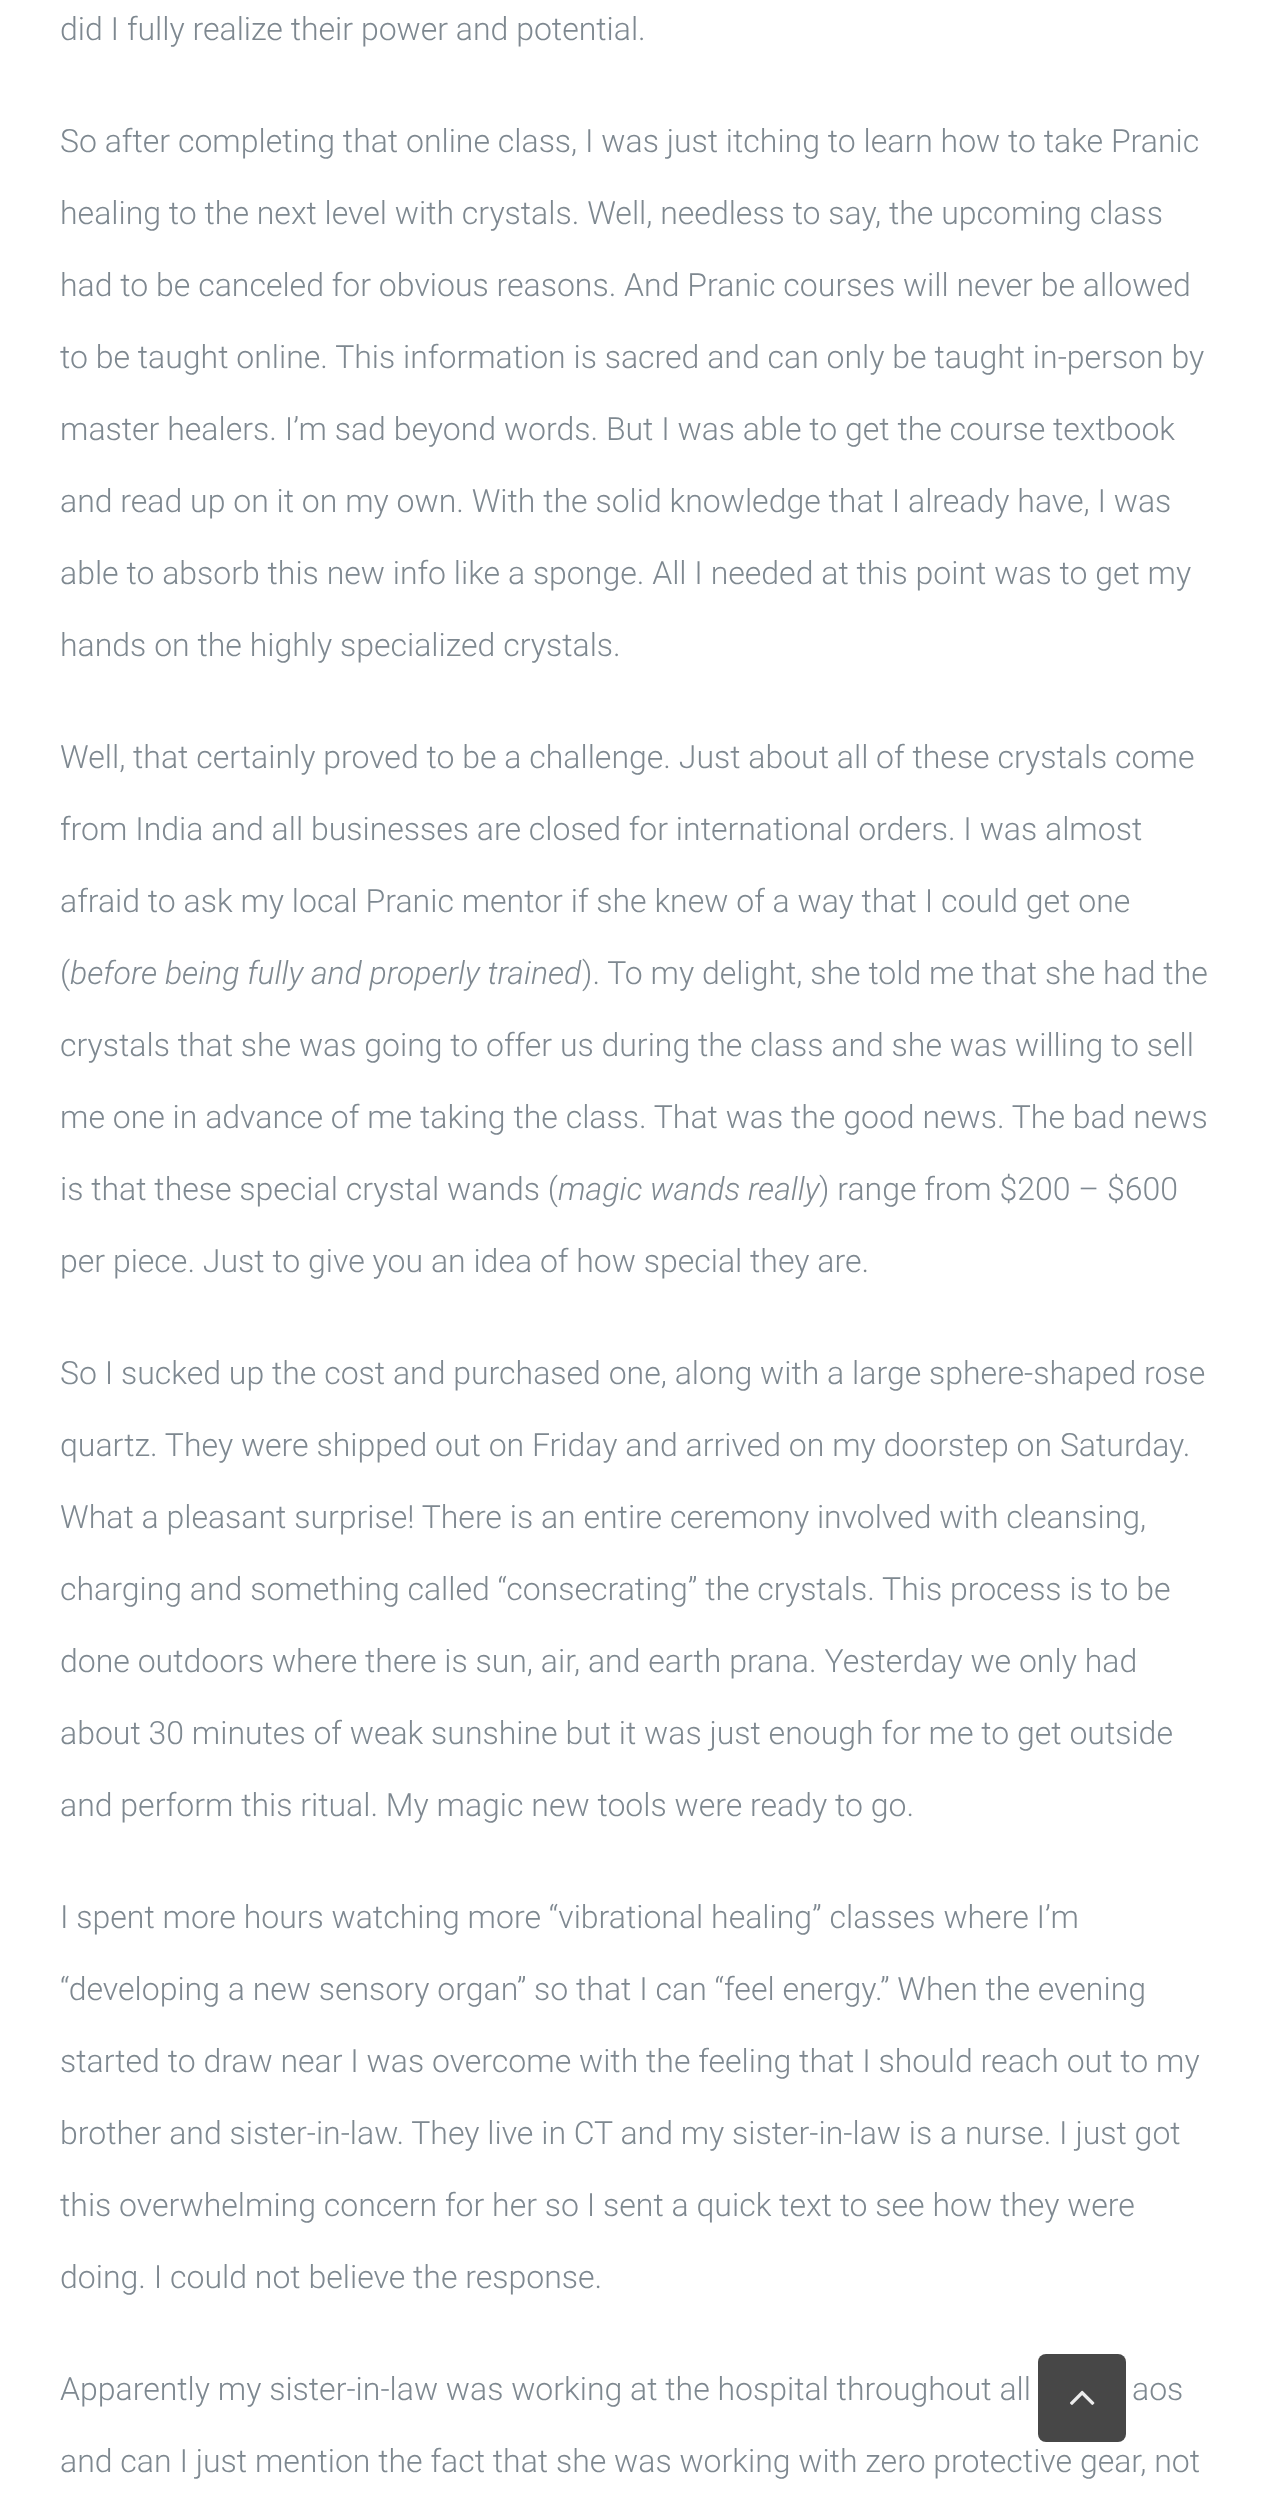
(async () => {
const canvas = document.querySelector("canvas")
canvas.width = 1275
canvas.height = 2501
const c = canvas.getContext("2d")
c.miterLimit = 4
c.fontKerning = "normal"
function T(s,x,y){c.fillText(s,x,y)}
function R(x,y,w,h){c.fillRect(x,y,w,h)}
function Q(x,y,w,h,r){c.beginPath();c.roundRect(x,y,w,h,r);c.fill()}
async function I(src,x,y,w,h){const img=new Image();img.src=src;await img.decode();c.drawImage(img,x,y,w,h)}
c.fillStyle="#fff"
R(0,0,1275,2501)
c.font="300 32px Roboto"
c.fillStyle="#7e8890"
T("did I fully realize their power and potential.",60,40)
T("So after completing that online class, I was just itching to learn how to take Pranic",60,152)
T("healing to the next level with crystals. Well, needless to say, the upcoming class",60,224)
T("had to be canceled for obvious reasons. And Pranic courses will never be allowed",60,296)
T("to be taught online. This information is sacred and can only be taught in-person by",60,368)
T("master healers. I’m sad beyond words. But I was able to get the course textbook",60,440)
T("and read up on it on my own. With the solid knowledge that I already have, I was",60,512)
T("able to absorb this new info like a sponge. All I needed at this point was to get my",60,584)
T("hands on the highly specialized crystals.",60,656)
T("Well, that certainly proved to be a challenge. Just about all of these crystals come",60,768)
T("from India and all businesses are closed for international orders. I was almost",60,840)
T("afraid to ask my local Pranic mentor if she knew of a way that I could get one",60,912)
T("(",60,984)
c.font="italic 300 32px Roboto"
T("before being fully and properly trained",70,984)
c.font="300 32px Roboto"
T("). To my delight, she told me that she had the",582,984)
T("crystals that she was going to offer us during the class and she was willing to sell",60,1056)
T("me one in advance of me taking the class. That was the good news. The bad news",60,1128)
T("is that these special crystal wands (",60,1200)
c.font="italic 300 32px Roboto"
T("magic wands really",558,1200)
c.font="300 32px Roboto"
T(") range from $200 – $600",819,1200)
T("per piece. Just to give you an idea of how special they are.",60,1272)
T("So I sucked up the cost and purchased one, along with a large sphere-shaped rose",60,1384)
T("quartz. They were shipped out on Friday and arrived on my doorstep on Saturday.",60,1456)
T("What a pleasant surprise! There is an entire ceremony involved with cleansing,",60,1528)
T("charging and something called “consecrating” the crystals. This process is to be",60,1600)
T("done outdoors where there is sun, air, and earth prana. Yesterday we only had",60,1672)
T("about 30 minutes of weak sunshine but it was just enough for me to get outside",60,1744)
T("and perform this ritual. My magic new tools were ready to go.",60,1816)
T("I spent more hours watching more “vibrational healing” classes where I’m",60,1928)
T("“developing a new sensory organ” so that I can “feel energy.” When the evening",60,2000)
T("started to draw near I was overcome with the feeling that I should reach out to my",60,2072)
T("brother and sister-in-law. They live in CT and my sister-in-law is a nurse. I just got",60,2144)
T("this overwhelming concern for her so I sent a quick text to see how they were",60,2216)
T("doing. I could not believe the response.",60,2288)
T("Apparently my sister-in-law was working at the hospital throughout all",60,2400)
T("aos",1132,2400)
T("and can I just mention the fact that she was working with zero protective gear, not",60,2472)
c.fillStyle="#333333e6"
Q(1038,2354,88,88,8)
await I("1.png",1070,2390,25,15)
})()
